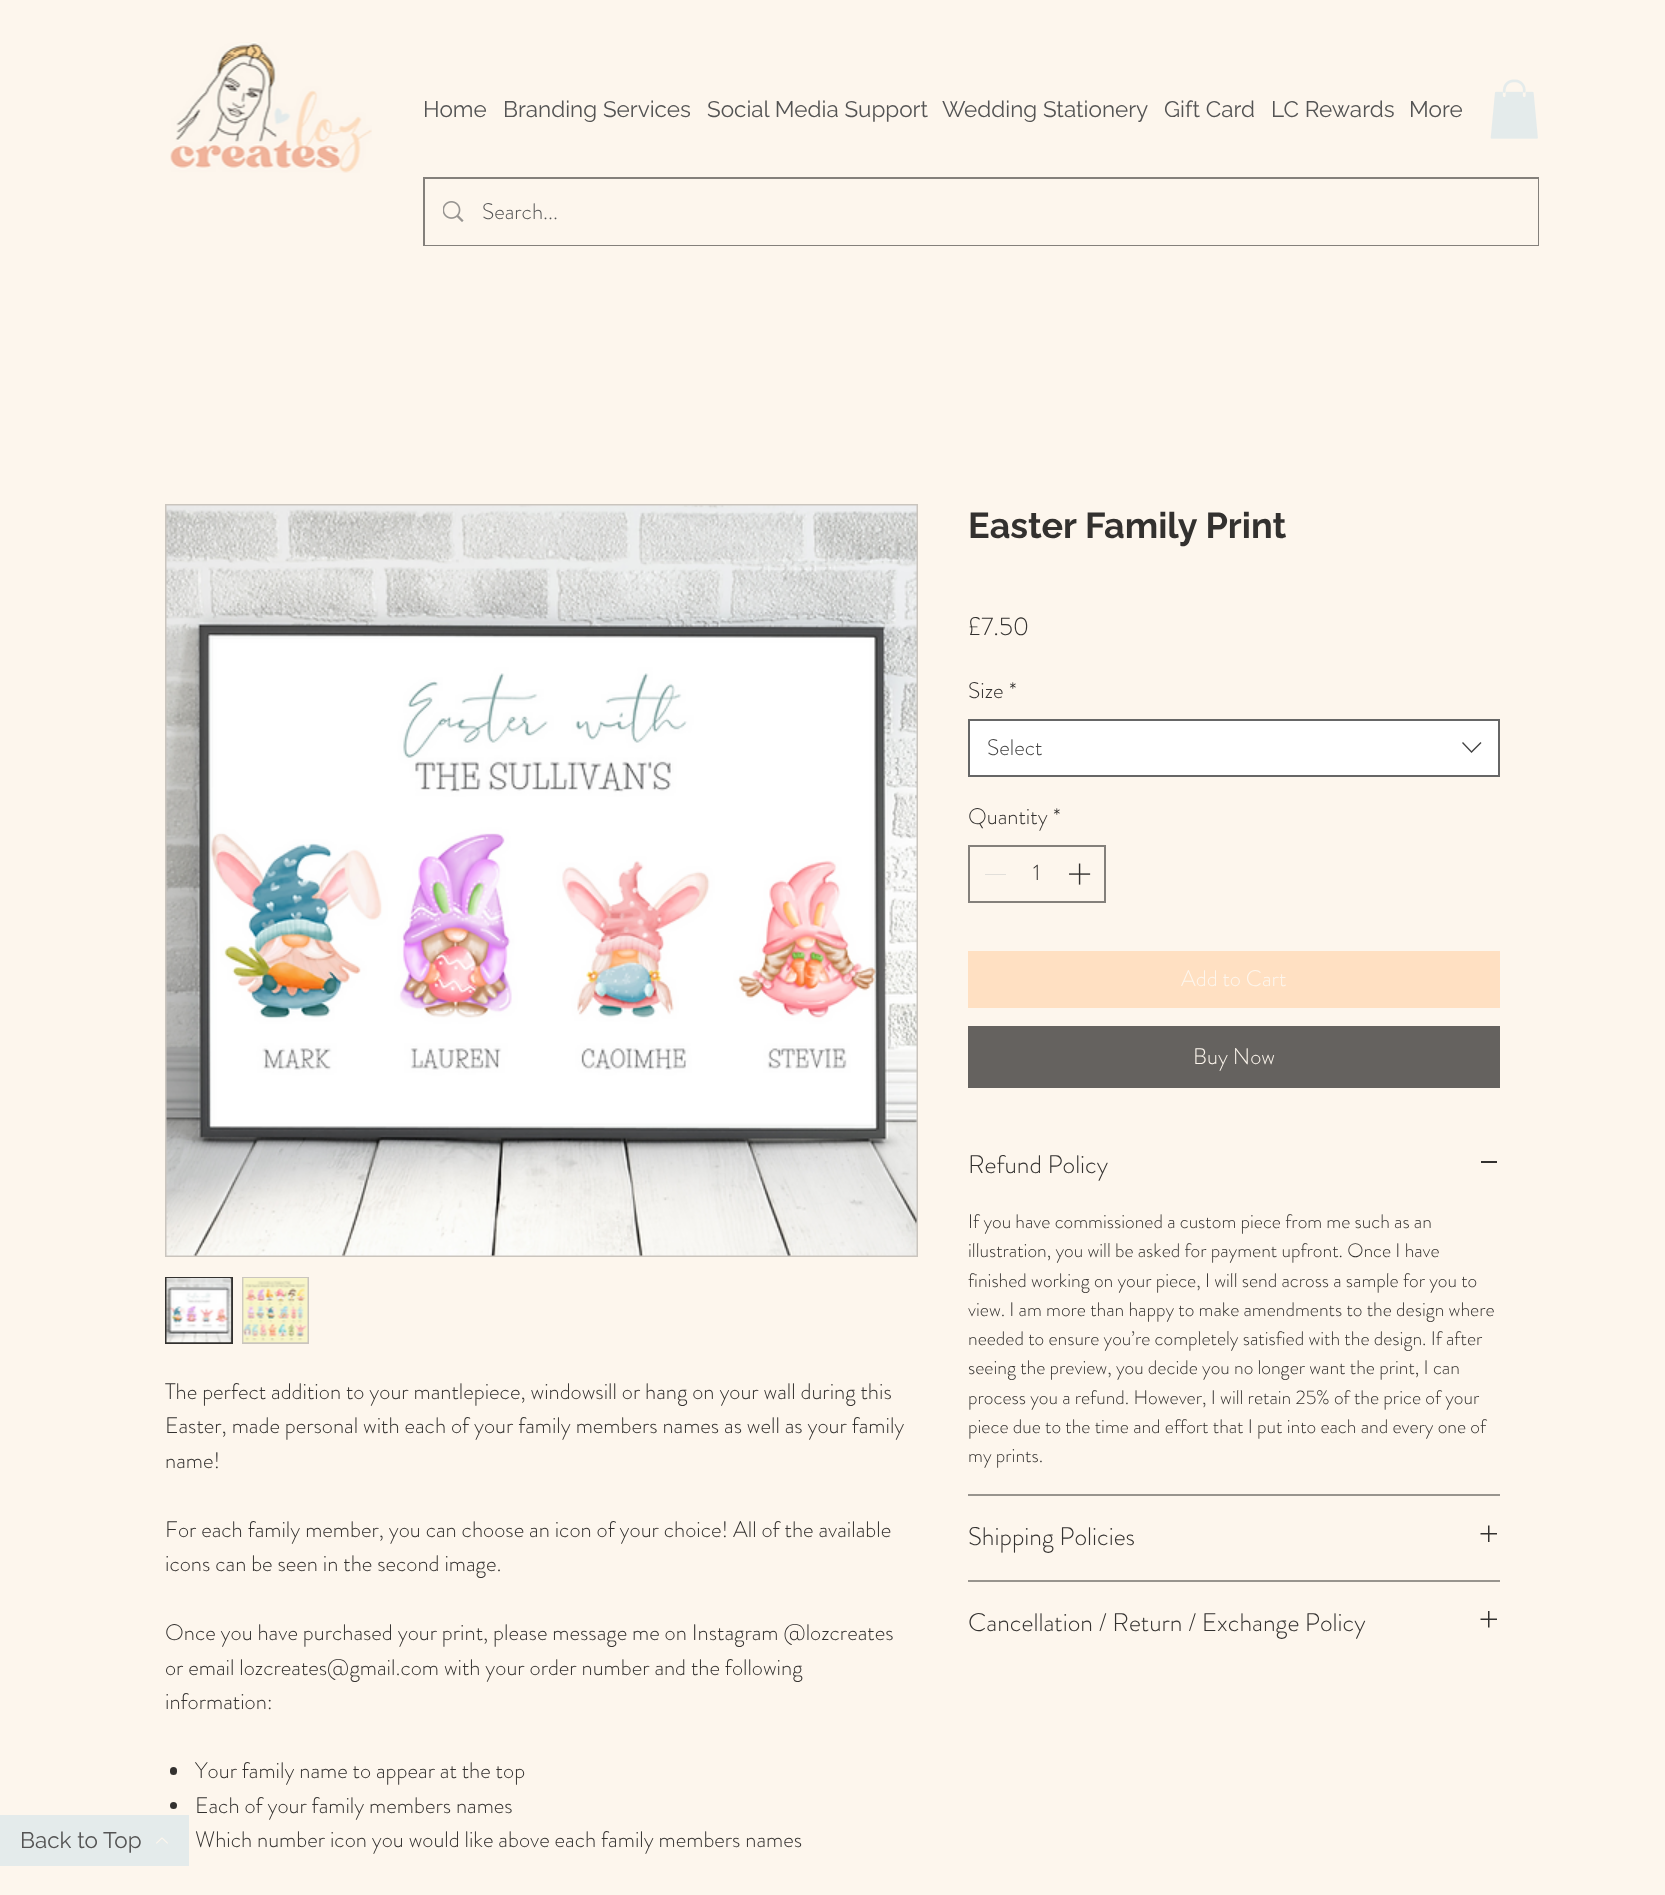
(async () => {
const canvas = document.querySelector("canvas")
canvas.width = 1665
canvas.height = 1895
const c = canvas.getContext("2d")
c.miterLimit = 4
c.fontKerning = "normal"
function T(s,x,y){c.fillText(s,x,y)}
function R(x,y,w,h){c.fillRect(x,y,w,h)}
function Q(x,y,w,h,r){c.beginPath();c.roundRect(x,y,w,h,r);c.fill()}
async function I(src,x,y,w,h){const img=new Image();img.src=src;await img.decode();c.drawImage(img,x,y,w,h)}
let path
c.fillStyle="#fdf6ed"
R(0,0,1665,1895)
await I("1.png",170,42,202,131)
c.font="22.5px Raleway"
c.fillStyle="#545454"
T("Home",423,117)
T("Branding Services",503,117)
T("Social Media Support",707,117)
T("Wedding Stationery",942,117)
T("Gift Card",1164,117)
T("LC Rewards",1271,117)
T("More",1409,117)
await I("2.png",1490,79,48,60)
c.strokeStyle="#84807b"
c.lineWidth=2
c.strokeRect(424,178,1114,67)
c.fillStyle="#fdf6ed"
R(425,179,1113,66)
await I("3.png",443,201,21,21)
c.font="300 22.5px 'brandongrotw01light'"
c.fillStyle="#545454"
T("Search...",482,219)
c.fillStyle="#e4ebeb"
R(0,1815,189,51)
c.font="22.5px Raleway"
c.fillStyle="#545454"
T("Back to Top",20,1848)
await I("4.png",156,1837,12,7)
c.strokeStyle="#cac5be"
c.strokeRect(166,505,751,751)
await I("5.png",166,505,751,751)
c.fillStyle="#cac5be"
R(230,1279,1,63)
c.strokeStyle="#33312f"
c.strokeRect(166,1278,66,65)
await I("6.png",166,1278,66,65)
R(242,1277,67,67)
await I("7.png",242,1278,66,65)
c.font="300 22.5px 'brandongrotw01light'"
c.fillStyle="#33312f"
T("The perfect addition to your mantlepiece, windowsill or hang on your wall during this",165,1399)
T("Easter, made personal with each of your family members names as well as your family",165,1433)
T("name!",165,1468)
T("For each family member, you can choose an icon of your choice! All of the available",165,1537)
T("icons can be seen in the second image.",165,1571)
T("Once you have purchased your print, please message me on Instagram @lozcreates",165,1640)
T("or email lozcreates@gmail.com with your order number and the following",165,1675)
T("information:",165,1709)
Q(170,1767,7,8,3.5)
T("Your family name to appear at the top",195,1778)
c.beginPath()
c.arc(173.5,1805.5,3.5,0,7)
c.fill()
T("Each of your family members names",195,1813)
T("Which number icon you would like above each family members names",195,1847)
c.font="bold 36px Raleway"
T("Easter Family Print",968,538)
c.font="300 25.5px 'brandongrotw01light'"
T("£7.50",968,635)
c.font="300 22.5px 'brandongrotw01light'"
T("Size",968,698)
T("*",1009,698)
c.fillStyle="#fff"
c.beginPath()
c.rect(969,720,530,56)
c.fill()
c.strokeStyle="#666"
c.stroke()
c.fillStyle="#444"
T("Select",987,755)
path = new Path2D("M1480.5 742l1 1l-10 10l-9.5-10l1-1l8.5 9z")
c.fill(path,"evenodd")
c.fillStyle="#33312f"
T("Quantity",968,824)
T("*",1053,824)
c.strokeStyle="#84807b"
c.strokeRect(969,846,136,56)
c.fillStyle="#e2dfda"
R(985,874,21,1)
c.fillStyle="#33312f"
T("1",1033,880)
await I("8.png",1069,863,22,22)
c.fillStyle="#ffe0c2"
R(968,951,532,57)
c.fillStyle="#fdf6ed"
T("Add to Cart",1181,986)
c.fillStyle="#65625f"
R(968,1026,532,62)
c.fillStyle="#fdf6ed"
T("Buy Now",1193,1064)
c.fillStyle="#98948e"
R(968,1494,532,2)
c.font="300 25.5px 'brandongrotw01light'"
c.fillStyle="#33312f"
T("Refund Policy",968,1173)
R(1481,1161,16,2)
c.font="300 19.5px 'brandongrotw01light'"
T("If you have commissioned a custom piece from me such as an",968,1228)
T("illustration, you will be asked for payment upfront. Once I have",968,1257)
T("finished working on your piece, I will send across a sample for you to",968,1287)
T("view. I am more than happy to make amendments to the design where",968,1316)
T("needed to ensure you’re completely satisfied with the design. If after",968,1345)
T("seeing the preview, you decide you no longer want the print, I can",968,1374)
T("process you a refund. However, I will retain 25% of the price of your",968,1404)
T("piece due to the time and effort that I put into each and every one of",968,1433)
T("my prints.",968,1462)
c.fillStyle="#98948e"
R(968,1580,532,2)
c.font="300 25.5px 'brandongrotw01light'"
c.fillStyle="#33312f"
T("Shipping Policies",968,1545)
await I("9.png",1480,1525,17,17)
T("Cancellation / Return / Exchange Policy",968,1631)
await I("10.png",1480,1611,17,17)
})()
